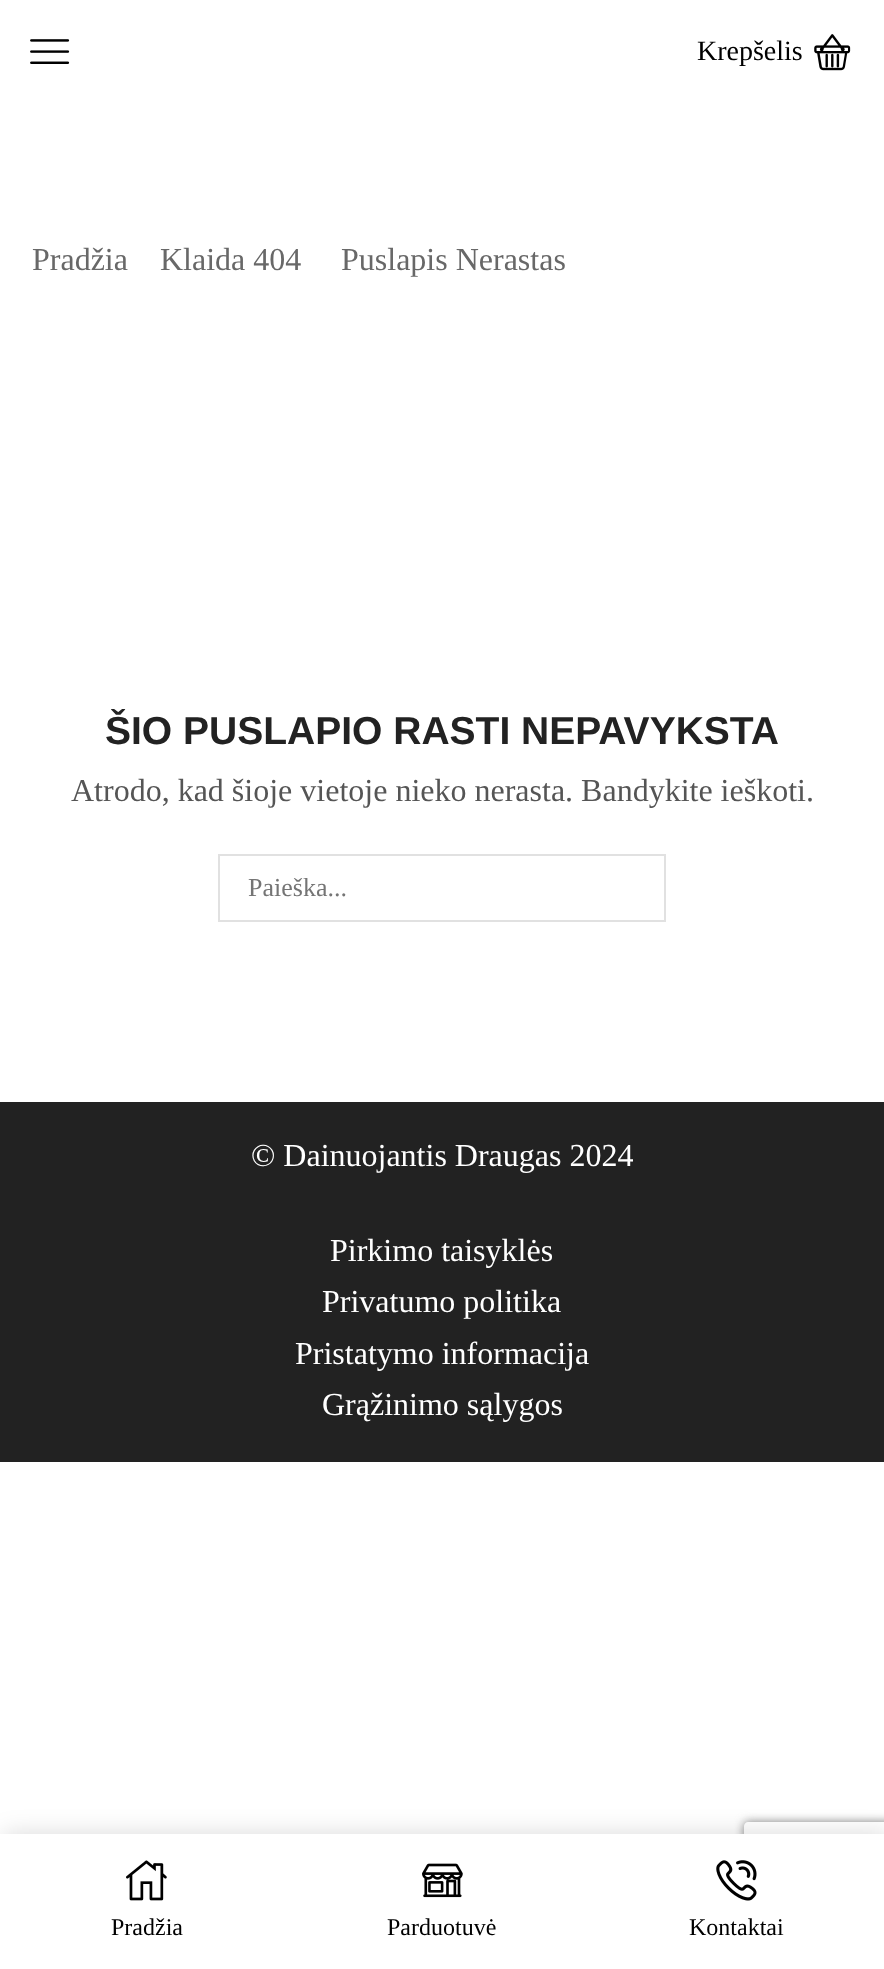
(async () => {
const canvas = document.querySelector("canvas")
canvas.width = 884
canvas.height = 1969
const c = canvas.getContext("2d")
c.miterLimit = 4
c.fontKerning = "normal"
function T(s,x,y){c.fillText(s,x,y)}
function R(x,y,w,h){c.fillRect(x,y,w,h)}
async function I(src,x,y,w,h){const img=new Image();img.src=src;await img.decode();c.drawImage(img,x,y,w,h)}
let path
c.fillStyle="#fff"
R(0,0,884,1969)
await I("1.png",30,39,40,25)
c.font="28px Liberation Serif"
c.fillStyle="#000"
T("Krepšelis",697,60)
await I("2.png",814,34,37,37)
c.font="32px Liberation Serif"
c.fillStyle="#686868"
T("Pradžia",32,270)
T("Klaida 404",160,270)
T("Puslapis Nerastas",341,270)
c.font="bold 39px Liberation Sans"
c.fillStyle="#222"
T("ŠIO PUSLAPIO RASTI NEPAVYKSTA",105,744)
c.font="32px Liberation Serif"
c.fillStyle="#555"
T("Atrodo, kad šioje vietoje nieko nerasta. Bandykite ieškoti.",71,801)
c.strokeStyle="#e1e1e1"
c.lineWidth=2
c.strokeRect(219,855,446,66)
c.font="26px Liberation Serif"
c.fillStyle="#757575"
T("Paieška...",248,896)
c.fillStyle="#222"
R(0,1102,884,360)
c.font="32px Liberation Serif"
c.fillStyle="#fff"
T("© Dainuojantis Draugas 2024",251,1166)
T("Pirkimo taisyklės",330,1261)
T("Privatumo politika",322,1312)
T("Pristatymo informacija",295,1364)
T("Grąžinimo sąlygos",322,1415)
c.fillStyle="#00000026"
c.filter="blur(12px)"
c.beginPath()
c.rect(4,1834,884,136)
c.fill()
c.filter="none"
c.save()
path = new Path2D("M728 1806h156v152h-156zm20 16h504c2 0 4 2 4 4v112c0 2-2 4-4 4h-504c-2 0-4-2-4-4v-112c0-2 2-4 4-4z")
c.clip(path,"evenodd")
c.fillStyle="#808080"
c.filter="blur(5px)"
c.beginPath()
c.roundRect(744,1822,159,120,4)
c.fill()
c.filter="none"
c.restore()
c.fillStyle="#fff"
R(0,1834,884,135)
await I("3.png",126,1860,41,41)
c.font="24px Liberation Serif"
c.fillStyle="#000"
T("Pradžia",111,1935)
await I("4.png",422,1863,41,35)
T("Parduotuvė",387,1935)
await I("5.png",716,1860,41,41)
T("Kontaktai",689,1935)
})()
